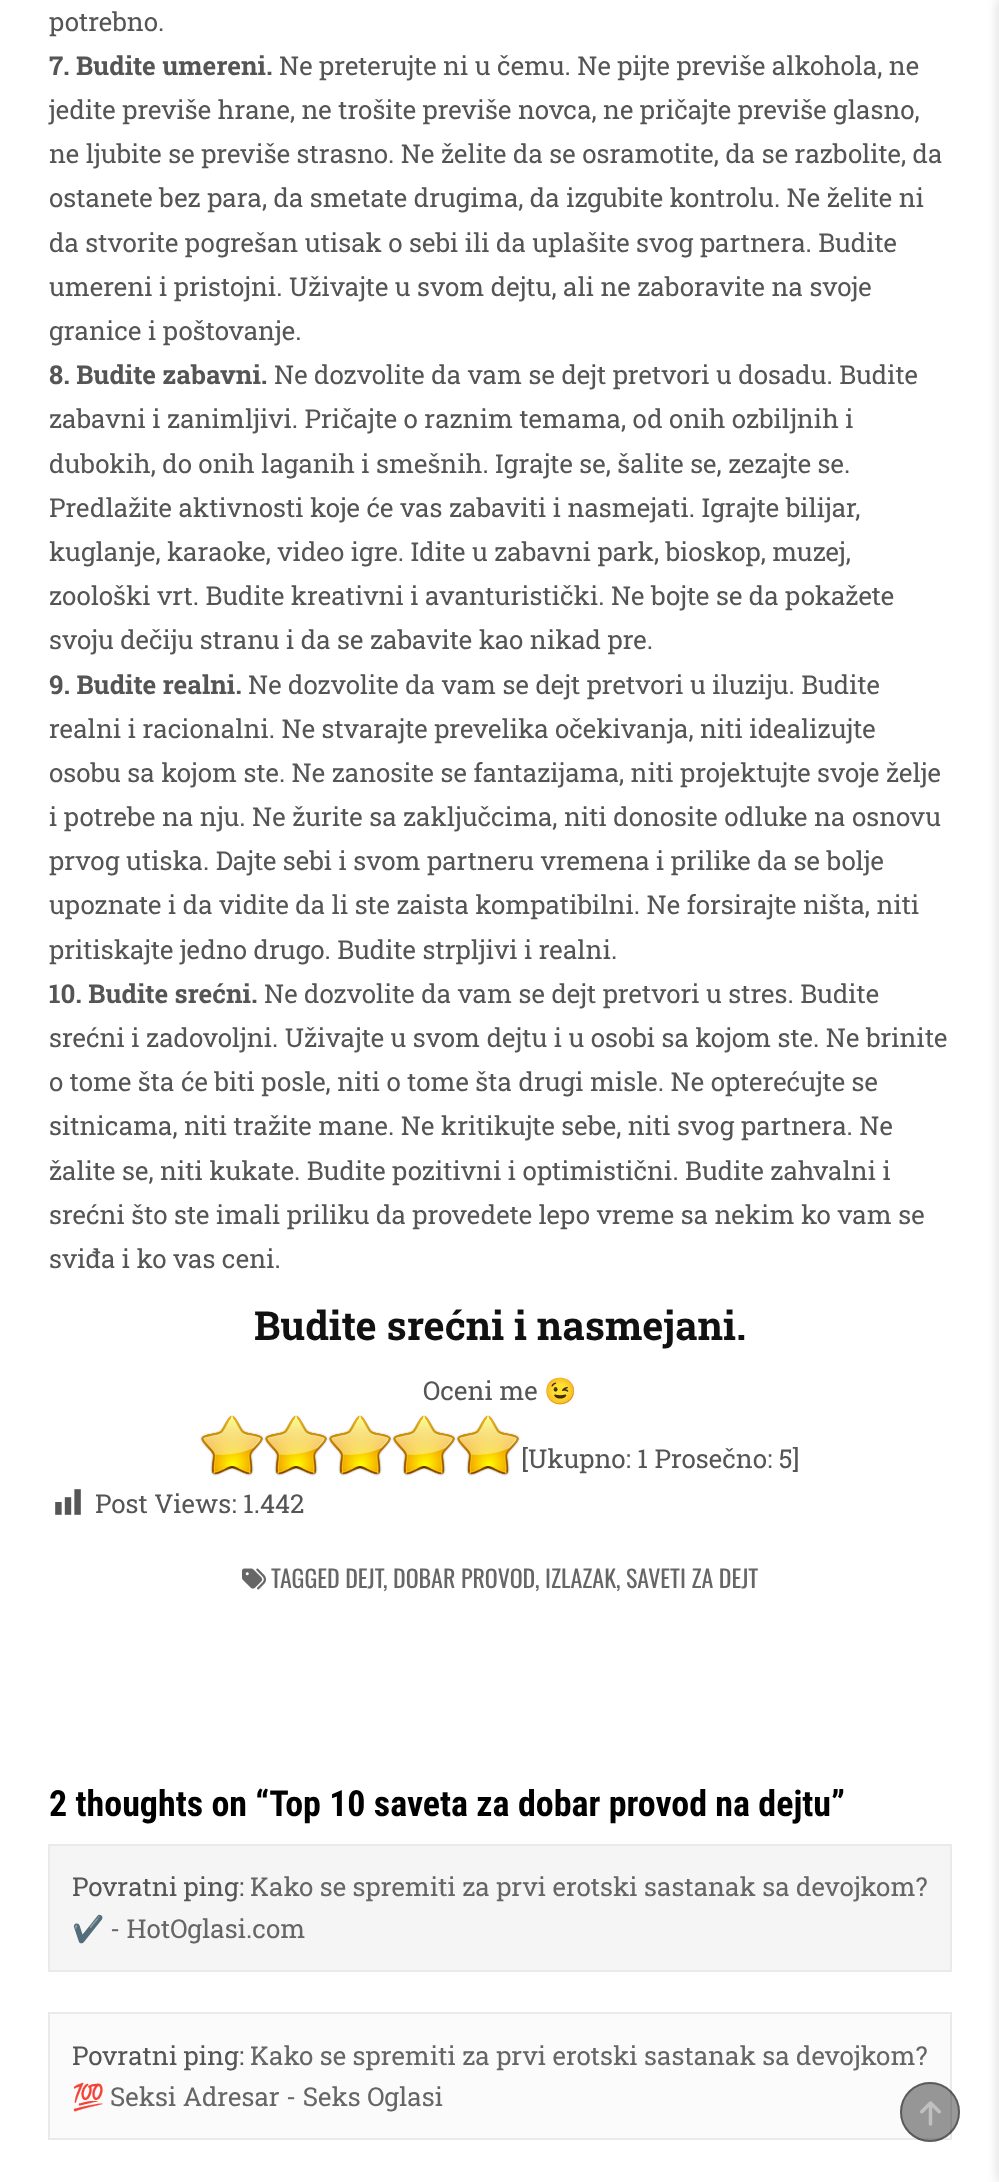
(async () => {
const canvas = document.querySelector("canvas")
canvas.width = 999
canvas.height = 2182
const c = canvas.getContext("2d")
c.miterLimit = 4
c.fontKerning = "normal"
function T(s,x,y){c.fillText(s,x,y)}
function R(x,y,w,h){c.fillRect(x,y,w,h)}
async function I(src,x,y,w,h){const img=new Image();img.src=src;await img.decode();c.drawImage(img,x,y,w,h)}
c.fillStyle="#fff"
R(0,0,999,2182)
c.font="26px Roboto Slab"
c.fillStyle="#555"
T("potrebno.",49,31)
c.font="bold 26px Roboto Slab"
T("7. Budite umereni.",49,75)
c.font="26px Roboto Slab"
T("Ne preterujte ni u čemu. Ne pijte previše alkohola, ne",279,75)
T("jedite previše hrane, ne trošite previše novca, ne pričajte previše glasno,",49,119)
T("ne ljubite se previše strasno. Ne želite da se osramotite, da se razbolite, da",49,163)
T("ostanete bez para, da smetate drugima, da izgubite kontrolu. Ne želite ni",49,207)
T("da stvorite pogrešan utisak o sebi ili da uplašite svog partnera. Budite",49,252)
T("umereni i pristojni. Uživajte u svom dejtu, ali ne zaboravite na svoje",49,296)
T("granice i poštovanje.",49,340)
c.font="bold 26px Roboto Slab"
T("8. Budite zabavni.",49,384)
c.font="26px Roboto Slab"
T("Ne dozvolite da vam se dejt pretvori u dosadu. Budite",274,384)
T("zabavni i zanimljivi. Pričajte o raznim temama, od onih ozbiljnih i",49,428)
T("dubokih, do onih laganih i smešnih. Igrajte se, šalite se, zezajte se.",49,473)
T("Predlažite aktivnosti koje će vas zabaviti i nasmejati. Igrajte bilijar,",49,517)
T("kuglanje, karaoke, video igre. Idite u zabavni park, bioskop, muzej,",49,561)
T("zoološki vrt. Budite kreativni i avanturistički. Ne bojte se da pokažete",49,605)
T("svoju dečiju stranu i da se zabavite kao nikad pre.",49,649)
c.font="bold 26px Roboto Slab"
T("9. Budite realni.",49,694)
c.font="26px Roboto Slab"
T("Ne dozvolite da vam se dejt pretvori u iluziju. Budite",248,694)
T("realni i racionalni. Ne stvarajte prevelika očekivanja, niti idealizujte",49,738)
T("osobu sa kojom ste. Ne zanosite se fantazijama, niti projektujte svoje želje",49,782)
T("i potrebe na nju. Ne žurite sa zaključcima, niti donosite odluke na osnovu",49,826)
T("prvog utiska. Dajte sebi i svom partneru vremena i prilike da se bolje",49,870)
T("upoznate i da vidite da li ste zaista kompatibilni. Ne forsirajte ništa, niti",49,914)
T("pritiskajte jedno drugo. Budite strpljivi i realni.",49,959)
c.font="bold 26px Roboto Slab"
T("10. Budite srećni.",49,1003)
c.font="26px Roboto Slab"
T("Ne dozvolite da vam se dejt pretvori u stres. Budite",264,1003)
T("srećni i zadovoljni. Uživajte u svom dejtu i u osobi sa kojom ste. Ne brinite",49,1047)
T("o tome šta će biti posle, niti o tome šta drugi misle. Ne opterećujte se",49,1091)
T("sitnicama, niti tražite mane. Ne kritikujte sebe, niti svog partnera. Ne",49,1135)
T("žalite se, niti kukate. Budite pozitivni i optimistični. Budite zahvalni i",49,1180)
T("srećni što ste imali priliku da provedete lepo vreme sa nekim ko vam se",49,1224)
T("sviđa i ko vas ceni.",49,1268)
c.font="bold 40px Roboto Slab"
c.fillStyle="#111"
T("Budite srećni i nasmejani.",254,1340)
c.font="26px Roboto Slab"
c.fillStyle="#555"
T("Oceni me",423,1400)
c.font="26px Noto Color Emoji"
T("😉",544,1400)
await I("1.png",200,1415,320,61)
await I("2.png",201,1416,318,58)
c.font="26px Roboto Slab"
T("[Ukupno: 1 Prosečno: 5]",521,1468)
await I("3.png",55,1489,26,26)
T("Post Views: 1.442",95,1513)
await I("4.png",242,1568,24,22)
c.font="24px Oswald"
c.fillStyle="#666"
T("TAGGED DEJT",271,1588)
T(", DOBAR PROVOD, IZLAZAK, SAVETI ZA DEJT",383,1588)
c.font="bold 36px Roboto Condensed"
c.fillStyle="#000"
T("2 thoughts on “Top 10 saveta za dobar provod na dejtu”",49,1816)
c.fillStyle="#f5f5f5"
c.beginPath()
c.rect(49,1845,902,126)
c.fill()
c.strokeStyle="#eaeaea"
c.lineWidth=2
c.stroke()
c.font="26px Roboto Slab"
c.fillStyle="#555"
T("Povratni ping:",72,1896)
c.fillStyle="#666"
T("Kako se spremiti za prvi erotski sastanak sa devojkom?",250,1896)
c.font="26px Noto Color Emoji"
T("✔️",72,1938)
c.font="26px Roboto Slab"
T("- HotOglasi.com",110,1938)
c.fillStyle="#fbfbfb"
c.beginPath()
c.rect(49,2013,902,126)
c.fill()
c.stroke()
c.fillStyle="#555"
T("Povratni ping:",72,2065)
c.fillStyle="#666"
T("Kako se spremiti za prvi erotski sastanak sa devojkom?",250,2065)
c.font="26px Noto Color Emoji"
T("💯",72,2106)
c.font="26px Roboto Slab"
T("Seksi Adresar - Seks Oglasi",110,2106)
c.fillStyle="#0000001a"
c.filter="blur(5px)"
c.beginPath()
c.rect(996,0,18,2182)
c.fill()
c.filter="none"
c.fillStyle="#00000066"
c.beginPath()
c.arc(930,2112,30,0,7)
c.fill()
c.beginPath()
c.arc(930,2112,29,0,7)
c.strokeStyle="#00000066"
c.stroke()
await I("5.png",920,2101,21,25)
})()
